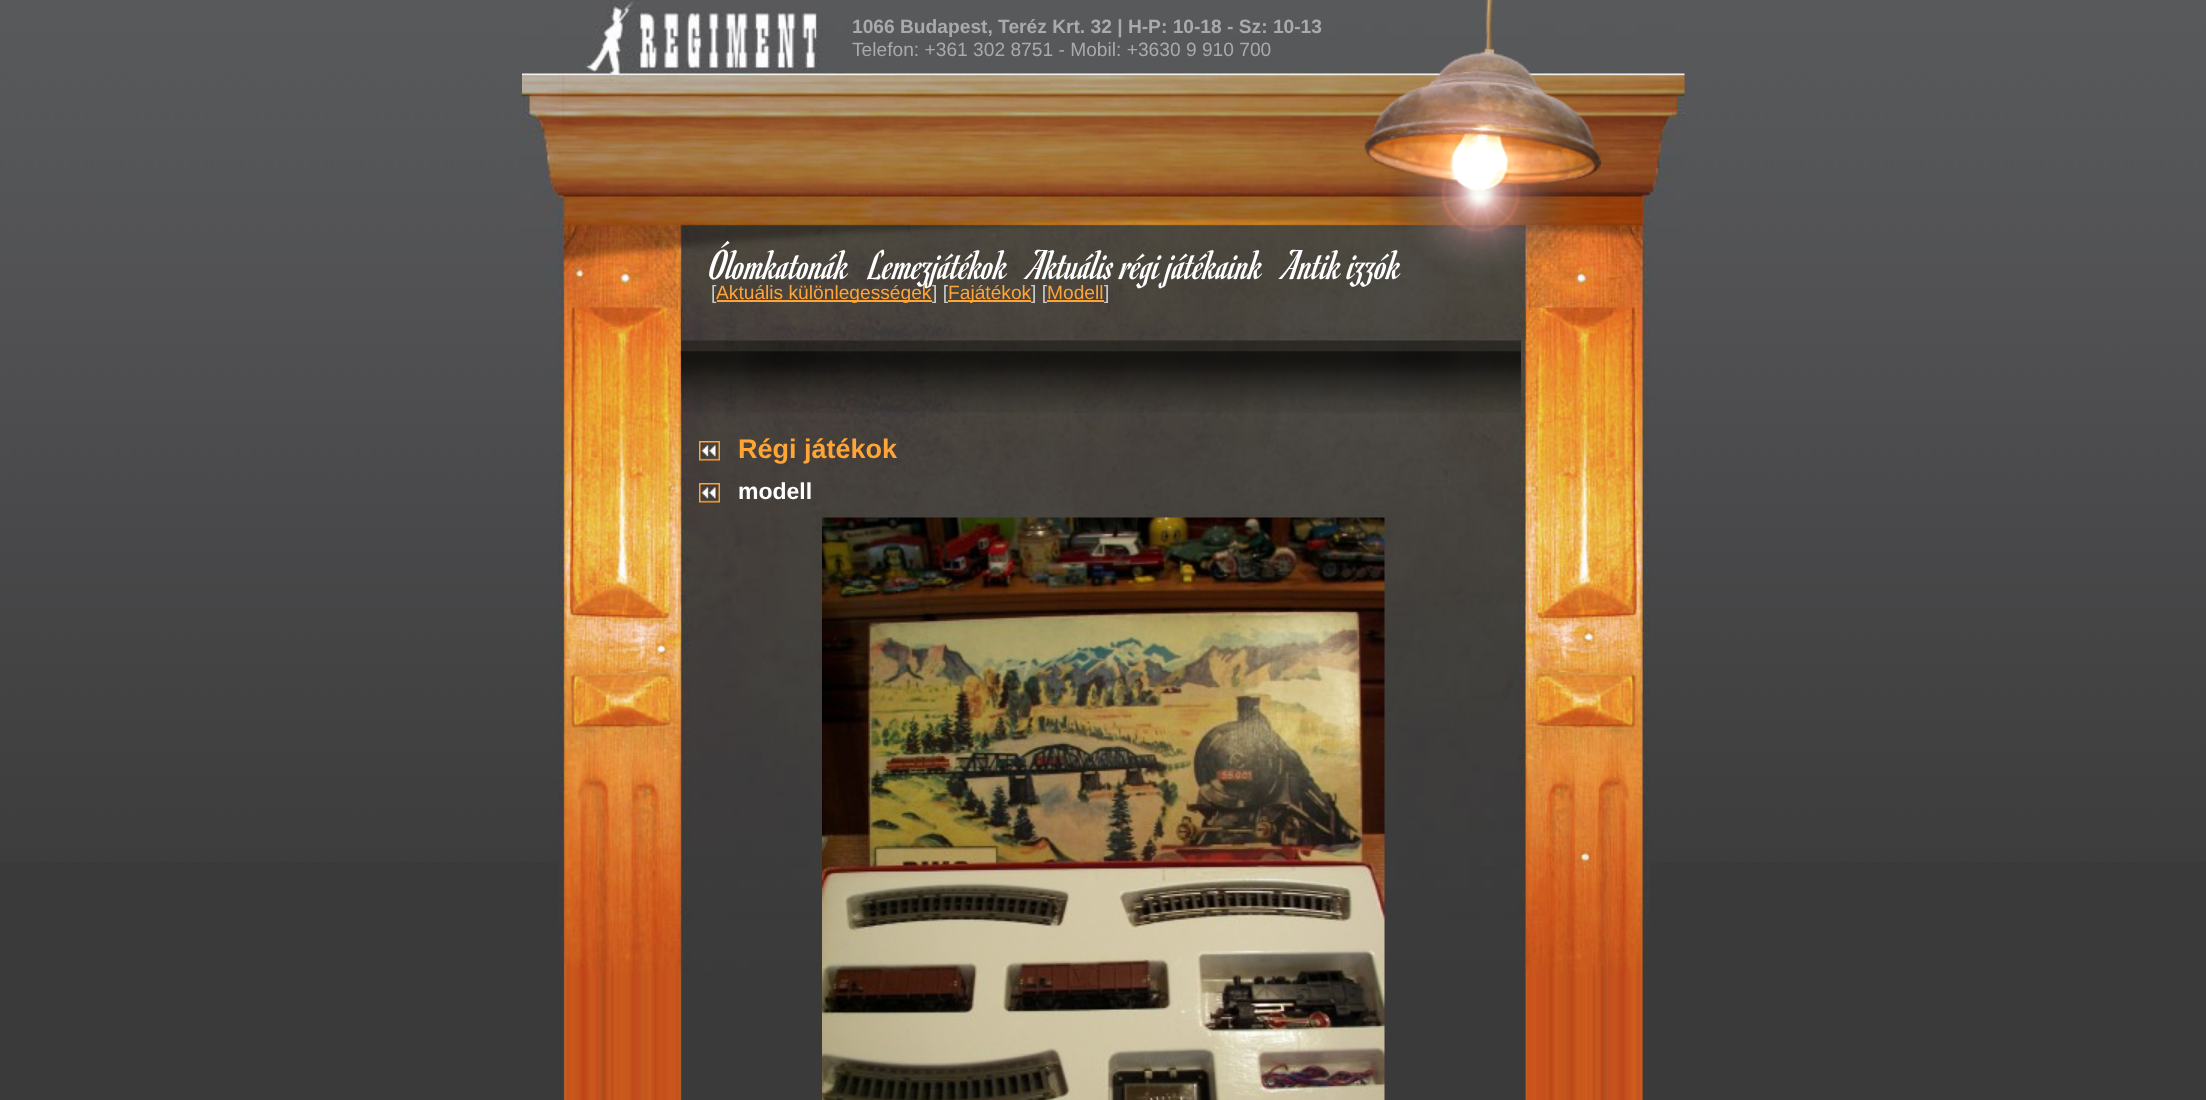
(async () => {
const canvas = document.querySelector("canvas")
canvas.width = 2206
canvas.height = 1100
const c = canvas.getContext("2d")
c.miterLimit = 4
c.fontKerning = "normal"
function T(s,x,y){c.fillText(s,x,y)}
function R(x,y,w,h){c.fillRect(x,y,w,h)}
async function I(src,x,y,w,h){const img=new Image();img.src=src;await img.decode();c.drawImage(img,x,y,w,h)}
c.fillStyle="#3a3a3a"
R(0,0,2206,1100)
await I("1.png",0,0,2206,862)
await I("7.png",558,307,1092,665)
await I("8.png",681,307,845,34)
await I("2.png",522,0,1163,308)
c.font="bold 19.2px Liberation Sans"
c.fillStyle="#aaa"
T("1066 Budapest, Teréz Krt. 32 | H-P: 10-18 - Sz: 10-13",852,33)
c.font="19.2px Liberation Sans"
T("Telefon: +361 302 8751 - Mobil: +3630 9 910 700",852,56)
await I("5.png",564,195,1079,69)
await I("4.png",1390,166,176,109)
await I("3.png",1364,0,238,192)
c.font="43.25px Romanesco"
c.fillStyle="#fff"
T("Ólomkatonák",710,279)
T("Lemezjátékok",870,279)
T("Aktuális régi játékaink",1030,279)
T("Antik izzók",1285,279)
await I("6.png",563,972,1080,128)
c.font="19.2px Liberation Sans"
c.fillStyle="#ccc"
T("[",711,299)
c.fillStyle="#ffa436"
R(717,300,215,2)
T("Aktuális különlegességek",716,299)
c.fillStyle="#ccc"
T("] [",932,299)
c.fillStyle="#ffa436"
R(948,300,83,2)
T("Fajátékok",948,299)
c.fillStyle="#ccc"
T("] [",1031,299)
c.fillStyle="#ffa436"
T("Modell",1047,299)
R(1047,300,57,2)
c.fillStyle="#ccc"
T("]",1104,299)
await I("9.png",681,340,840,73)
await I("10.png",699,441,21,20)
c.font="bold 27px Liberation Sans"
c.fillStyle="#ffa436"
T("Régi játékok",738,458)
await I("11.png",699,483,21,20)
c.font="bold 23px Liberation Sans"
c.fillStyle="#fff"
T("modell",738,499)
await I("12.png",822,517,563,583)
})()
